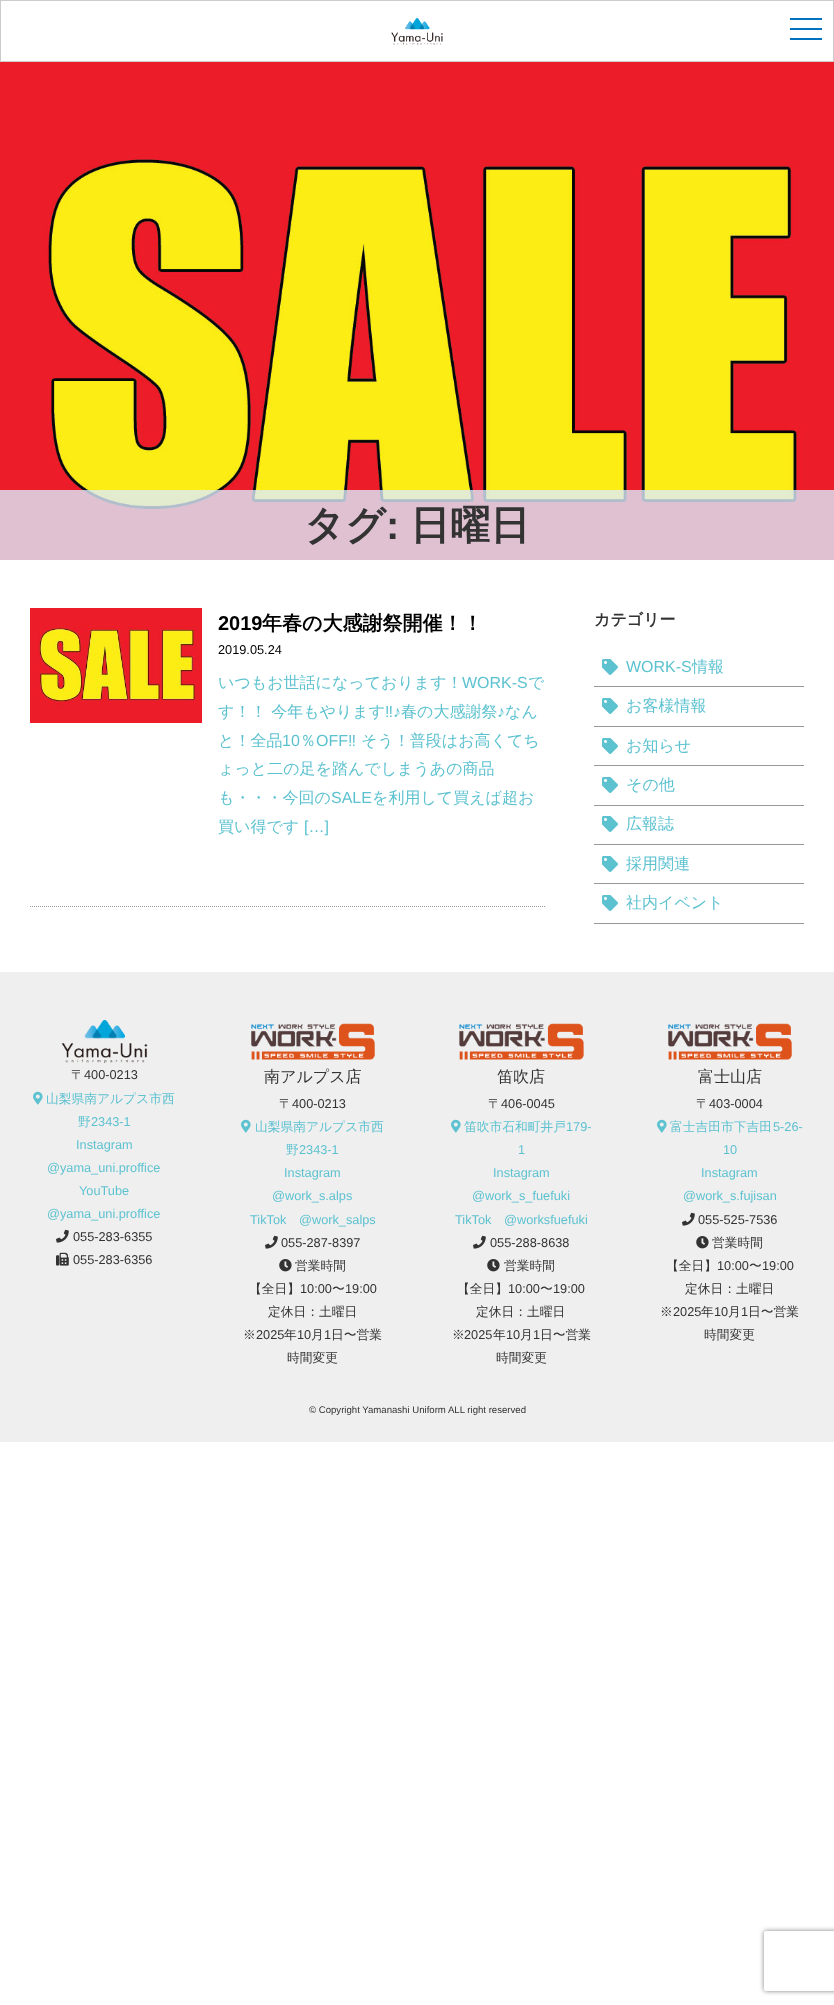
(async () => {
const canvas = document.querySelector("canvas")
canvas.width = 834
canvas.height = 2005
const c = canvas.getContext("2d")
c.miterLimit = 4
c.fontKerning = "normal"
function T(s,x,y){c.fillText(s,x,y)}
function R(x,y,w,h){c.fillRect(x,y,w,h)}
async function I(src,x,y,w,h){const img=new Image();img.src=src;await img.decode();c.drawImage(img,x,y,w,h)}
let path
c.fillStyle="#fff"
R(0,0,834,2005)
c.strokeStyle="#ccc"
c.strokeRect(.5,.5,833,61)
await I("1.png",391,18,52,27)
c.fillStyle="#0070bf"
R(790,28,32,2)
R(790,18,32,2)
R(790,38,32,2)
await I("2.png",0,62,834,498)
c.fillStyle="#dcebfccc"
R(0,490,834,70)
c.font="bold 40px WenQuanYi Zen Hei"
c.fillStyle="#333"
T("タグ",304,539)
c.font="bold 40px Liberation Sans"
T(":",386,539)
c.font="bold 40px WenQuanYi Zen Hei"
T("日曜日",410,539)
path = new Path2D("M30 906.5h516")
c.strokeStyle="#999"
c.setLineDash([1,1])
c.stroke(path)
await I("3.png",30,608,172,115)
c.font="bold 20px Liberation Sans"
c.fillStyle="#000"
T("2019",218,630)
c.font="bold 20px WenQuanYi Zen Hei"
T("年春の大感謝祭開催！！",262,630)
c.font="12.75px Liberation Sans"
T("2019.05.24",218,654)
c.font="500 16px WenQuanYi Zen Hei"
c.fillStyle="#5dc2d0"
T("いつもお世話になっております！",218,688)
c.font="16px Liberation Sans"
T("WORK-S",462,688)
c.font="500 16px WenQuanYi Zen Hei"
T("で",528,688)
T("す！！ 今年もやります",218,717)
c.font="16px Liberation Sans"
T("‼♪",385,717)
c.font="500 16px WenQuanYi Zen Hei"
T("春の大感謝祭",401,717)
c.font="16px Liberation Sans"
T("♪",497,717)
c.font="500 16px WenQuanYi Zen Hei"
T("なん",505,717)
T("と！全品",218,746)
c.font="16px Liberation Sans"
T("10",282,746)
c.font="500 16px WenQuanYi Zen Hei"
T("％",300,746)
c.font="16px Liberation Sans"
T("OFF‼",316,746)
c.font="500 16px WenQuanYi Zen Hei"
T("そう！普段はお高くてち",361,746)
T("ょっと二の足を踏んでしまうあの商品",218,774)
T("も・・・今回の",218,803)
c.font="16px Liberation Sans"
T("SALE",331,803)
c.font="500 16px WenQuanYi Zen Hei"
T("を利用して買えば超お",372,803)
T("買い得です",218,832)
c.font="16px Liberation Sans"
T("[…]",304,832)
c.font="bold 16px WenQuanYi Zen Hei"
c.fillStyle="#333"
T("カテゴリー",594,625)
c.fillStyle="#999"
R(594,686,210,1)
await I("4.png",602,659,16,16)
c.font="16px Liberation Sans"
c.fillStyle="#5dc2d0"
T("WORK-S",626,672)
c.font="500 16px WenQuanYi Zen Hei"
T("情報",692,672)
c.fillStyle="#999"
R(594,726,210,1)
await I("4.png",602,698,16,16)
c.fillStyle="#5dc2d0"
T("お客様情報",626,711)
c.fillStyle="#999"
R(594,765,210,1)
await I("4.png",602,738,16,16)
c.fillStyle="#5dc2d0"
T("お知らせ",626,751)
c.fillStyle="#999"
R(594,805,210,1)
await I("4.png",602,777,16,16)
c.fillStyle="#5dc2d0"
T("その他",626,790)
c.fillStyle="#999"
R(594,844,210,1)
await I("4.png",602,816,16,16)
c.fillStyle="#5dc2d0"
T("広報誌",626,829)
c.fillStyle="#999"
R(594,883,210,1)
await I("4.png",602,856,16,16)
c.fillStyle="#5dc2d0"
T("採用関連",626,869)
c.fillStyle="#999"
R(594,923,210,1)
await I("4.png",602,895,16,16)
c.fillStyle="#5dc2d0"
T("社内イベント",626,908)
c.fillStyle="#efefef"
R(0,972,834,470)
await I("5.png",61,1020,87,43)
c.font="500 12.75px WenQuanYi Zen Hei"
c.fillStyle="#333"
T("〒",71,1079)
c.font="12.75px Liberation Sans"
T("400-0213",84,1079)
await I("6.png",33,1091,10,14)
c.font="500 12.75px WenQuanYi Zen Hei"
c.fillStyle="#5dc2d0"
T("山梨県南アルプス市西",46,1103)
T("野",78,1126)
c.font="12.75px Liberation Sans"
T("2343-1",91,1126)
T("Instagram",76,1149)
T("@yama_uni.proffice",47,1172)
T("YouTube",79,1195)
T("@yama_uni.proffice",47,1218)
await I("7.png",56,1229,13,14)
c.fillStyle="#333"
T("055-283-6355",73,1241)
await I("8.png",56,1252,13,14)
T("055-283-6356",73,1264)
await I("9.png",251,1023,124,37)
c.font="500 16px WenQuanYi Zen Hei"
T("南アルプス店",264,1082)
c.font="500 12.75px WenQuanYi Zen Hei"
T("〒",279,1108)
c.font="12.75px Liberation Sans"
T("400-0213",292,1108)
await I("6.png",241,1119,10,14)
c.font="500 12.75px WenQuanYi Zen Hei"
c.fillStyle="#5dc2d0"
T("山梨県南アルプス市西",255,1131)
T("野",286,1154)
c.font="12.75px Liberation Sans"
T("2343-1",299,1154)
T("Instagram",284,1177)
T("@work_s.alps",272,1200)
T("TikTok",250,1224)
T("@work_salps",299,1224)
await I("7.png",265,1235,13,14)
c.fillStyle="#333"
T("055-287-8397",281,1247)
await I("10.png",279,1259,13,13)
c.font="500 12.75px WenQuanYi Zen Hei"
T("営業時間",295,1270)
T("【全日】",249,1293)
c.font="12.75px Liberation Sans"
T("10:00",300,1293)
c.font="500 12.75px WenQuanYi Zen Hei"
T("〜",332,1293)
c.font="12.75px Liberation Sans"
T("19:00",345,1293)
c.font="500 12.75px WenQuanYi Zen Hei"
T("定休日：土曜日",268,1316)
T("※",243,1339)
c.font="12.75px Liberation Sans"
T("2025",256,1339)
c.font="500 12.75px WenQuanYi Zen Hei"
T("年",284,1339)
c.font="12.75px Liberation Sans"
T("10",297,1339)
c.font="500 12.75px WenQuanYi Zen Hei"
T("月",311,1339)
c.font="12.75px Liberation Sans"
T("1",324,1339)
c.font="500 12.75px WenQuanYi Zen Hei"
T("日〜営業",331,1339)
T("時間変更",287,1362)
await I("11.png",459,1023,125,37)
c.font="500 16px WenQuanYi Zen Hei"
T("笛吹店",497,1082)
c.font="500 12.75px WenQuanYi Zen Hei"
T("〒",488,1108)
c.font="12.75px Liberation Sans"
T("406-0045",501,1108)
await I("6.png",451,1119,10,14)
c.font="500 12.75px WenQuanYi Zen Hei"
c.fillStyle="#5dc2d0"
T("笛吹市石和町井戸",464,1131)
c.font="12.75px Liberation Sans"
T("179-",566,1131)
T("1",518,1154)
T("Instagram",493,1177)
T("@work_s_fuefuki",472,1200)
T("TikTok",455,1224)
T("@worksfuefuki",504,1224)
await I("7.png",473,1235,13,14)
c.fillStyle="#333"
T("055-288-8638",490,1247)
await I("10.png",487,1259,13,13)
c.font="500 12.75px WenQuanYi Zen Hei"
T("営業時間",504,1270)
T("【全日】",457,1293)
c.font="12.75px Liberation Sans"
T("10:00",508,1293)
c.font="500 12.75px WenQuanYi Zen Hei"
T("〜",540,1293)
c.font="12.75px Liberation Sans"
T("19:00",553,1293)
c.font="500 12.75px WenQuanYi Zen Hei"
T("定休日：土曜日",476,1316)
T("※",452,1339)
c.font="12.75px Liberation Sans"
T("2025",464,1339)
c.font="500 12.75px WenQuanYi Zen Hei"
T("年",493,1339)
c.font="12.75px Liberation Sans"
T("10",506,1339)
c.font="500 12.75px WenQuanYi Zen Hei"
T("月",520,1339)
c.font="12.75px Liberation Sans"
T("1",533,1339)
c.font="500 12.75px WenQuanYi Zen Hei"
T("日〜営業",540,1339)
T("時間変更",496,1362)
await I("12.png",668,1023,124,37)
c.font="500 16px WenQuanYi Zen Hei"
T("富士山店",698,1082)
c.font="500 12.75px WenQuanYi Zen Hei"
T("〒",696,1108)
c.font="12.75px Liberation Sans"
T("403-0004",709,1108)
await I("6.png",657,1119,10,14)
c.font="500 12.75px WenQuanYi Zen Hei"
c.fillStyle="#5dc2d0"
T("富士吉田市下吉田",670,1131)
c.font="12.75px Liberation Sans"
T("5-26-",773,1131)
T("10",723,1154)
T("Instagram",701,1177)
T("@work_s.fujisan",683,1200)
await I("7.png",682,1212,13,14)
c.fillStyle="#333"
T("055-525-7536",698,1224)
await I("10.png",696,1236,13,13)
c.font="500 12.75px WenQuanYi Zen Hei"
T("営業時間",712,1247)
T("【全日】",666,1270)
c.font="12.75px Liberation Sans"
T("10:00",717,1270)
c.font="500 12.75px WenQuanYi Zen Hei"
T("〜",749,1270)
c.font="12.75px Liberation Sans"
T("19:00",762,1270)
c.font="500 12.75px WenQuanYi Zen Hei"
T("定休日：土曜日",685,1293)
T("※",660,1316)
c.font="12.75px Liberation Sans"
T("2025",673,1316)
c.font="500 12.75px WenQuanYi Zen Hei"
T("年",701,1316)
c.font="12.75px Liberation Sans"
T("10",714,1316)
c.font="500 12.75px WenQuanYi Zen Hei"
T("月",728,1316)
c.font="12.75px Liberation Sans"
T("1",741,1316)
c.font="500 12.75px WenQuanYi Zen Hei"
T("日〜営業",748,1316)
T("時間変更",704,1339)
c.font="9.6px Liberation Sans"
T("© Copyright Yamanashi Uniform ALL right reserved",309,1413)
c.save()
path = new Path2D("M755 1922h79v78h-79zm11 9h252c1 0 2 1 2 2v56c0 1-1 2-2 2h-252c-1 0-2-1-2-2v-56c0-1 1-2 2-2z")
c.clip(path,"evenodd")
c.fillStyle="#808080"
c.filter="blur(2.5px)"
c.beginPath()
c.roundRect(764,1931,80,60,2)
c.fill()
c.filter="none"
c.restore()
})()
